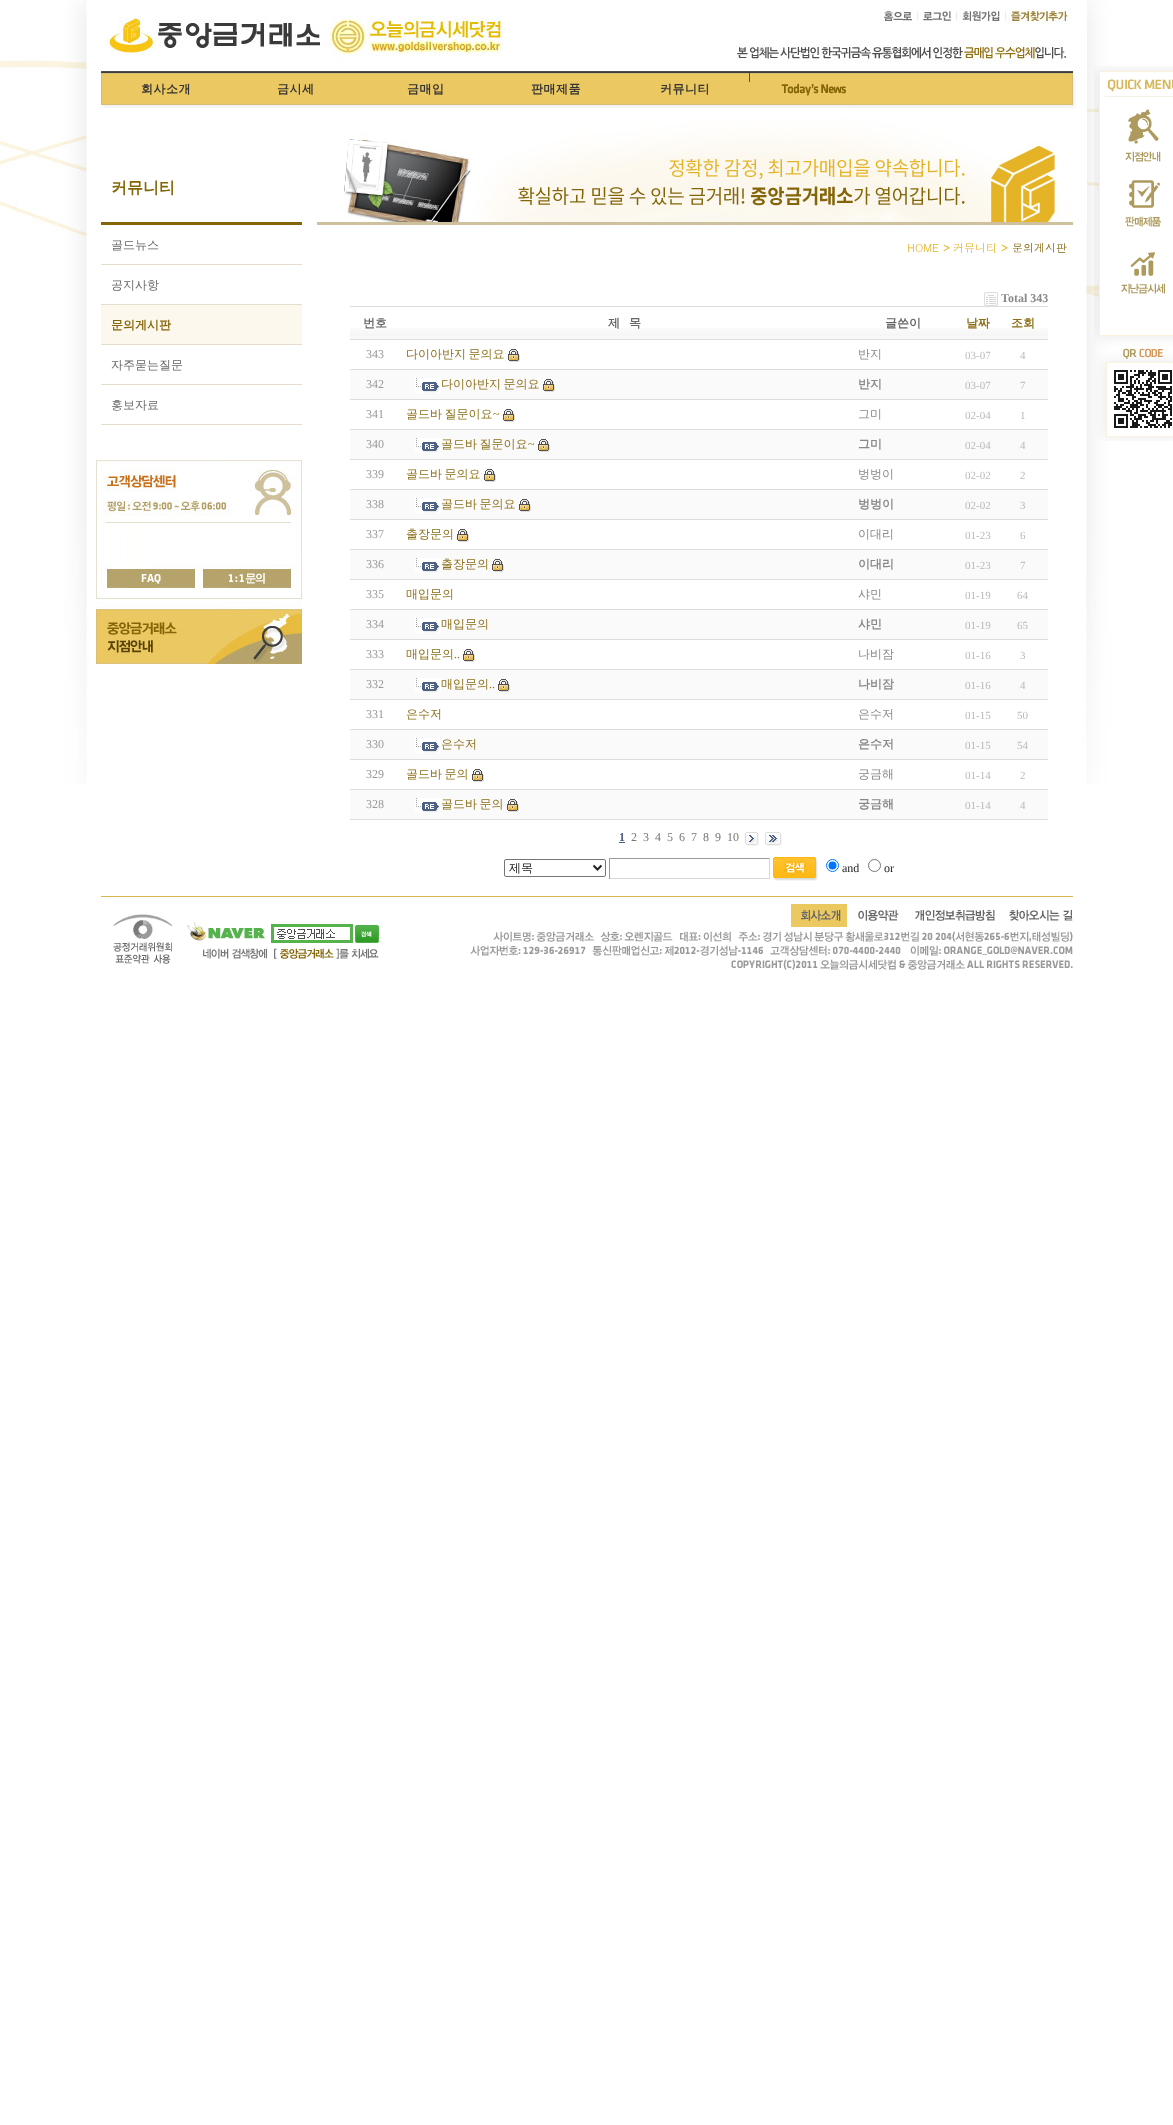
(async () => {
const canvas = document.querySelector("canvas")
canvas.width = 1173
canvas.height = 2125
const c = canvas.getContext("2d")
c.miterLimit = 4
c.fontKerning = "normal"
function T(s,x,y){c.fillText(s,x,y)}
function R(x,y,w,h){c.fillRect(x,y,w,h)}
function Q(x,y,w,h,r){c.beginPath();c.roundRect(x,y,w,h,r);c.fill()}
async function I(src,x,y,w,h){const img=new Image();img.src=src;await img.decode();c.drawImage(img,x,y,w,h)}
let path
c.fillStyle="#fff"
R(0,0,1173,2125)
await I("1.png",0,0,1173,784)
await I("2.png",87,2,1000,69)
await I("3.png",853,71,234,38)
await I("4.png",1094,66,79,375)
await I("5.png",879,8,192,16)
await I("6.png",101,71,752,37)
c.letterSpacing="0.5px"
c.font="bold 12px WenQuanYi Zen Hei"
c.fillStyle="#333"
T("회사소개",141,93)
T("금시세",277,93)
T("금매입",407,93)
T("판매제품",531,93)
T("커뮤니티",660,93)
c.fillStyle="#fff"
Q(87,109,225,351,10)
c.fillStyle="#846508"
R(101,222,201,3)
c.letterSpacing="0px"
c.font="bold 16px WenQuanYi Zen Hei"
T("커뮤니티",111,193)
c.fillStyle="#e5decc"
R(101,264,201,1)
c.font="500 12px WenQuanYi Zen Hei"
c.fillStyle="#666"
T("골드뉴스",111,249)
c.fillStyle="#e5decc"
R(101,304,201,1)
c.fillStyle="#666"
T("공지사항",111,289)
c.fillStyle="#fcf8ed"
R(101,305,201,39)
c.fillStyle="#e5decc"
R(101,344,201,1)
c.font="bold 12px WenQuanYi Zen Hei"
c.fillStyle="#846508"
T("문의게시판",111,329)
c.fillStyle="#e5decc"
R(101,384,201,1)
c.font="500 12px WenQuanYi Zen Hei"
c.fillStyle="#666"
T("자주묻는질문",111,369)
c.fillStyle="#e5decc"
R(101,424,201,1)
c.fillStyle="#666"
T("홍보자료",111,409)
await I("7.png",96,460,206,204)
await I("8.png",312,109,775,116)
c.font="11px Dotum"
c.fillStyle="#e5b225"
T("HOME",907,252)
c.font="bold 11px Dotum"
T(">",943,252)
c.font="11px Dotum"
T("커뮤니티",953,252)
c.font="bold 11px Dotum"
T(">",1001,252)
c.font="11px Dotum"
c.fillStyle="#846508"
T("문의게시판",1012,252)
await I("9.png",984,292,14,14)
c.font="bold 12px Liberation Serif"
c.fillStyle="#888"
T("Total 343",1001,302)
await I("10.png",350,328,50,11)
c.fillStyle="#ddd"
R(350,306,698,1)
R(350,339,698,1)
c.font="bold 12px WenQuanYi Zen Hei"
c.fillStyle="#666"
T("번호",363,327)
await I("11.png",400,328,448,11)
T("제",608,327)
T("목",629,327)
await I("12.png",848,328,110,11)
T("글쓴이",885,327)
await I("13.png",958,328,40,11)
c.fillStyle="#8c6f18"
T("날짜",966,327)
await I("10.png",998,328,50,11)
T("조회",1011,327)
c.fillStyle="#ddd"
R(350,369,50,1)
c.font="12px Liberation Serif"
c.fillStyle="#999"
T("343",366,358)
c.wordSpacing="-1px"
c.font="500 12px WenQuanYi Zen Hei"
c.fillStyle="#8c6f18"
T("다이아반지 문의요",406,358)
await I("14.png",508,349,12,13)
c.fillStyle="#ddd"
R(400,369,648,1)
c.wordSpacing="0px"
c.fillStyle="#888"
T("반지",858,358)
c.font="11px Liberation Serif"
c.fillStyle="#bababa"
T("03-07",965,359)
T("4",1020,359)
c.fillStyle="#fafafa"
R(350,370,698,29)
c.fillStyle="#ddd"
R(350,399,50,1)
c.font="12px Liberation Serif"
c.fillStyle="#999"
T("342",366,388)
await I("15.png",415,378,26,15)
c.wordSpacing="-1px"
c.font="500 12px WenQuanYi Zen Hei"
c.fillStyle="#8c6f18"
T("다이아반지 문의요",441,388)
await I("14.png",543,379,12,13)
c.fillStyle="#ddd"
R(400,399,648,1)
c.wordSpacing="0px"
c.font="bold 12px WenQuanYi Zen Hei"
c.fillStyle="#888"
T("반지",858,388)
c.font="11px Liberation Serif"
c.fillStyle="#bababa"
T("03-07",965,389)
T("7",1020,389)
c.fillStyle="#ddd"
R(350,429,50,1)
c.font="12px Liberation Serif"
c.fillStyle="#999"
T("341",366,418)
c.wordSpacing="-1px"
c.font="500 12px WenQuanYi Zen Hei"
c.fillStyle="#8c6f18"
T("골드바 질문이요",406,418)
c.wordSpacing="0px"
c.font="12px Liberation Serif"
T("~",493,418)
await I("14.png",503,409,12,13)
c.fillStyle="#ddd"
R(400,429,648,1)
c.font="500 12px WenQuanYi Zen Hei"
c.fillStyle="#888"
T("그미",858,418)
c.font="11px Liberation Serif"
c.fillStyle="#bababa"
T("02-04",965,419)
T("1",1020,419)
c.fillStyle="#fafafa"
R(350,430,698,29)
c.fillStyle="#ddd"
R(350,459,50,1)
c.font="12px Liberation Serif"
c.fillStyle="#999"
T("340",366,448)
await I("15.png",415,438,26,15)
c.wordSpacing="-1px"
c.font="500 12px WenQuanYi Zen Hei"
c.fillStyle="#8c6f18"
T("골드바 질문이요",441,448)
c.wordSpacing="0px"
c.font="12px Liberation Serif"
T("~",528,448)
await I("14.png",538,439,12,13)
c.fillStyle="#ddd"
R(400,459,648,1)
c.font="bold 12px WenQuanYi Zen Hei"
c.fillStyle="#888"
T("그미",858,448)
c.font="11px Liberation Serif"
c.fillStyle="#bababa"
T("02-04",965,449)
T("4",1020,449)
c.fillStyle="#ddd"
R(350,489,50,1)
c.font="12px Liberation Serif"
c.fillStyle="#999"
T("339",366,478)
c.wordSpacing="-1px"
c.font="500 12px WenQuanYi Zen Hei"
c.fillStyle="#8c6f18"
T("골드바 문의요",406,478)
await I("14.png",484,469,12,13)
c.fillStyle="#ddd"
R(400,489,648,1)
c.wordSpacing="0px"
c.fillStyle="#888"
T("벙벙이",858,478)
c.font="11px Liberation Serif"
c.fillStyle="#bababa"
T("02-02",965,479)
T("2",1020,479)
c.fillStyle="#fafafa"
R(350,490,698,29)
c.fillStyle="#ddd"
R(350,519,50,1)
c.font="12px Liberation Serif"
c.fillStyle="#999"
T("338",366,508)
await I("15.png",415,498,26,15)
c.wordSpacing="-1px"
c.font="500 12px WenQuanYi Zen Hei"
c.fillStyle="#8c6f18"
T("골드바 문의요",441,508)
await I("14.png",519,499,12,13)
c.fillStyle="#ddd"
R(400,519,648,1)
c.wordSpacing="0px"
c.font="bold 12px WenQuanYi Zen Hei"
c.fillStyle="#888"
T("벙벙이",858,508)
c.font="11px Liberation Serif"
c.fillStyle="#bababa"
T("02-02",965,509)
T("3",1020,509)
c.fillStyle="#ddd"
R(350,549,50,1)
c.font="12px Liberation Serif"
c.fillStyle="#999"
T("337",366,538)
c.font="500 12px WenQuanYi Zen Hei"
c.fillStyle="#8c6f18"
T("출장문의",406,538)
await I("14.png",457,529,12,13)
c.fillStyle="#ddd"
R(400,549,648,1)
c.fillStyle="#888"
T("이대리",858,538)
c.font="11px Liberation Serif"
c.fillStyle="#bababa"
T("01-23",965,539)
T("6",1020,539)
c.fillStyle="#fafafa"
R(350,550,698,29)
c.fillStyle="#ddd"
R(350,579,50,1)
c.font="12px Liberation Serif"
c.fillStyle="#999"
T("336",366,568)
await I("15.png",415,558,26,15)
c.font="500 12px WenQuanYi Zen Hei"
c.fillStyle="#8c6f18"
T("출장문의",441,568)
await I("14.png",492,559,12,13)
c.fillStyle="#ddd"
R(400,579,648,1)
c.font="bold 12px WenQuanYi Zen Hei"
c.fillStyle="#888"
T("이대리",858,568)
c.font="11px Liberation Serif"
c.fillStyle="#bababa"
T("01-23",965,569)
T("7",1020,569)
c.fillStyle="#ddd"
R(350,609,50,1)
c.font="12px Liberation Serif"
c.fillStyle="#999"
T("335",366,598)
c.font="500 12px WenQuanYi Zen Hei"
c.fillStyle="#8c6f18"
T("매입문의",406,598)
c.fillStyle="#ddd"
R(400,609,648,1)
c.fillStyle="#888"
T("샤민",858,598)
c.font="11px Liberation Serif"
c.fillStyle="#bababa"
T("01-19",965,599)
T("64",1017,599)
c.fillStyle="#fafafa"
R(350,610,698,29)
c.fillStyle="#ddd"
R(350,639,50,1)
c.font="12px Liberation Serif"
c.fillStyle="#999"
T("334",366,628)
await I("15.png",415,618,26,15)
c.font="500 12px WenQuanYi Zen Hei"
c.fillStyle="#8c6f18"
T("매입문의",441,628)
c.fillStyle="#ddd"
R(400,639,648,1)
c.font="bold 12px WenQuanYi Zen Hei"
c.fillStyle="#888"
T("샤민",858,628)
c.font="11px Liberation Serif"
c.fillStyle="#bababa"
T("01-19",965,629)
T("65",1017,629)
c.fillStyle="#ddd"
R(350,669,50,1)
c.font="12px Liberation Serif"
c.fillStyle="#999"
T("333",366,658)
c.font="500 12px WenQuanYi Zen Hei"
c.fillStyle="#8c6f18"
T("매입문의",406,658)
c.font="12px Liberation Serif"
T("..",454,658)
await I("14.png",463,649,12,13)
c.fillStyle="#ddd"
R(400,669,648,1)
c.font="500 12px WenQuanYi Zen Hei"
c.fillStyle="#888"
T("나비잠",858,658)
c.font="11px Liberation Serif"
c.fillStyle="#bababa"
T("01-16",965,659)
T("3",1020,659)
c.fillStyle="#fafafa"
R(350,670,698,29)
c.fillStyle="#ddd"
R(350,699,50,1)
c.font="12px Liberation Serif"
c.fillStyle="#999"
T("332",366,688)
await I("15.png",415,678,26,15)
c.font="500 12px WenQuanYi Zen Hei"
c.fillStyle="#8c6f18"
T("매입문의",441,688)
c.font="12px Liberation Serif"
T("..",489,688)
await I("14.png",498,679,12,13)
c.fillStyle="#ddd"
R(400,699,648,1)
c.font="bold 12px WenQuanYi Zen Hei"
c.fillStyle="#888"
T("나비잠",858,688)
c.font="11px Liberation Serif"
c.fillStyle="#bababa"
T("01-16",965,689)
T("4",1020,689)
c.fillStyle="#ddd"
R(350,729,50,1)
c.font="12px Liberation Serif"
c.fillStyle="#999"
T("331",366,718)
c.font="500 12px WenQuanYi Zen Hei"
c.fillStyle="#8c6f18"
T("은수저",406,718)
c.fillStyle="#ddd"
R(400,729,648,1)
c.fillStyle="#888"
T("은수저",858,718)
c.font="11px Liberation Serif"
c.fillStyle="#bababa"
T("01-15",965,719)
T("50",1017,719)
c.fillStyle="#fafafa"
R(350,730,698,29)
c.fillStyle="#ddd"
R(350,759,50,1)
c.font="12px Liberation Serif"
c.fillStyle="#999"
T("330",366,748)
await I("15.png",415,738,26,15)
c.font="500 12px WenQuanYi Zen Hei"
c.fillStyle="#8c6f18"
T("은수저",441,748)
c.fillStyle="#ddd"
R(400,759,648,1)
c.font="bold 12px WenQuanYi Zen Hei"
c.fillStyle="#888"
T("은수저",858,748)
c.font="11px Liberation Serif"
c.fillStyle="#bababa"
T("01-15",965,749)
T("54",1017,749)
c.fillStyle="#ddd"
R(350,789,50,1)
c.font="12px Liberation Serif"
c.fillStyle="#999"
T("329",366,778)
c.wordSpacing="-1px"
c.font="500 12px WenQuanYi Zen Hei"
c.fillStyle="#8c6f18"
T("골드바 문의",406,778)
await I("14.png",472,769,12,13)
c.fillStyle="#ddd"
R(400,789,648,1)
c.wordSpacing="0px"
c.fillStyle="#888"
T("궁금해",858,778)
c.font="11px Liberation Serif"
c.fillStyle="#bababa"
T("01-14",965,779)
T("2",1020,779)
c.fillStyle="#fafafa"
R(350,790,698,29)
c.fillStyle="#ddd"
R(350,819,50,1)
c.font="12px Liberation Serif"
c.fillStyle="#999"
T("328",366,808)
await I("15.png",415,798,26,15)
c.wordSpacing="-1px"
c.font="500 12px WenQuanYi Zen Hei"
c.fillStyle="#8c6f18"
T("골드바 문의",441,808)
await I("14.png",507,799,12,13)
c.fillStyle="#ddd"
R(400,819,648,1)
c.wordSpacing="0px"
c.font="bold 12px WenQuanYi Zen Hei"
c.fillStyle="#888"
T("궁금해",858,808)
c.font="11px Liberation Serif"
c.fillStyle="#bababa"
T("01-14",965,809)
T("4",1020,809)
c.font="bold 12px Liberation Serif"
c.fillStyle="#4d6185"
T("1",619,841)
R(619,842,6,1)
c.font="12px Liberation Serif"
c.fillStyle="#777"
T("2",631,841)
T("3",643,841)
T("4",655,841)
T("5",667,841)
T("6",679,841)
T("7",691,841)
T("8",703,841)
T("9",715,841)
T("10",727,841)
await I("16.png",745,832,14,14)
await I("17.png",765,832,17,14)
c.beginPath()
c.roundRect(504.5,859.5,101,17,1.5)
c.strokeStyle="#767676"
c.stroke()
path = new Path2D("M593.5 865.5l4 4l4-4")
c.strokeStyle="#222"
c.lineWidth=2
c.stroke(path)
c.font="500 12px WenQuanYi Zen Hei"
c.fillStyle="#222"
T("제목",509,872)
c.fillStyle="#9a9a9a"
R(609,858,161,1)
c.fillStyle="#d8d8d8"
R(769,858,1,21)
R(609,878,161,1)
c.fillStyle="#9a9a9a"
R(609,858,1,21)
await I("18.png",773,857,45,24)
c.beginPath()
c.arc(832.5,865.5,6,0,7)
c.strokeStyle="#0075ff"
c.lineWidth=1
c.stroke()
c.fillStyle="#0075ff"
c.beginPath()
c.arc(832.5,865.5,4,0,7)
c.fill()
c.font="12px Liberation Serif"
c.fillStyle="#222"
T("and",842,872)
c.beginPath()
c.arc(874.5,865.5,6,0,7)
c.strokeStyle="#767676"
c.stroke()
T("or",884,872)
c.fillStyle="#d8b652"
R(101,896,972,1)
await I("19.png",113,904,960,66)
})()
